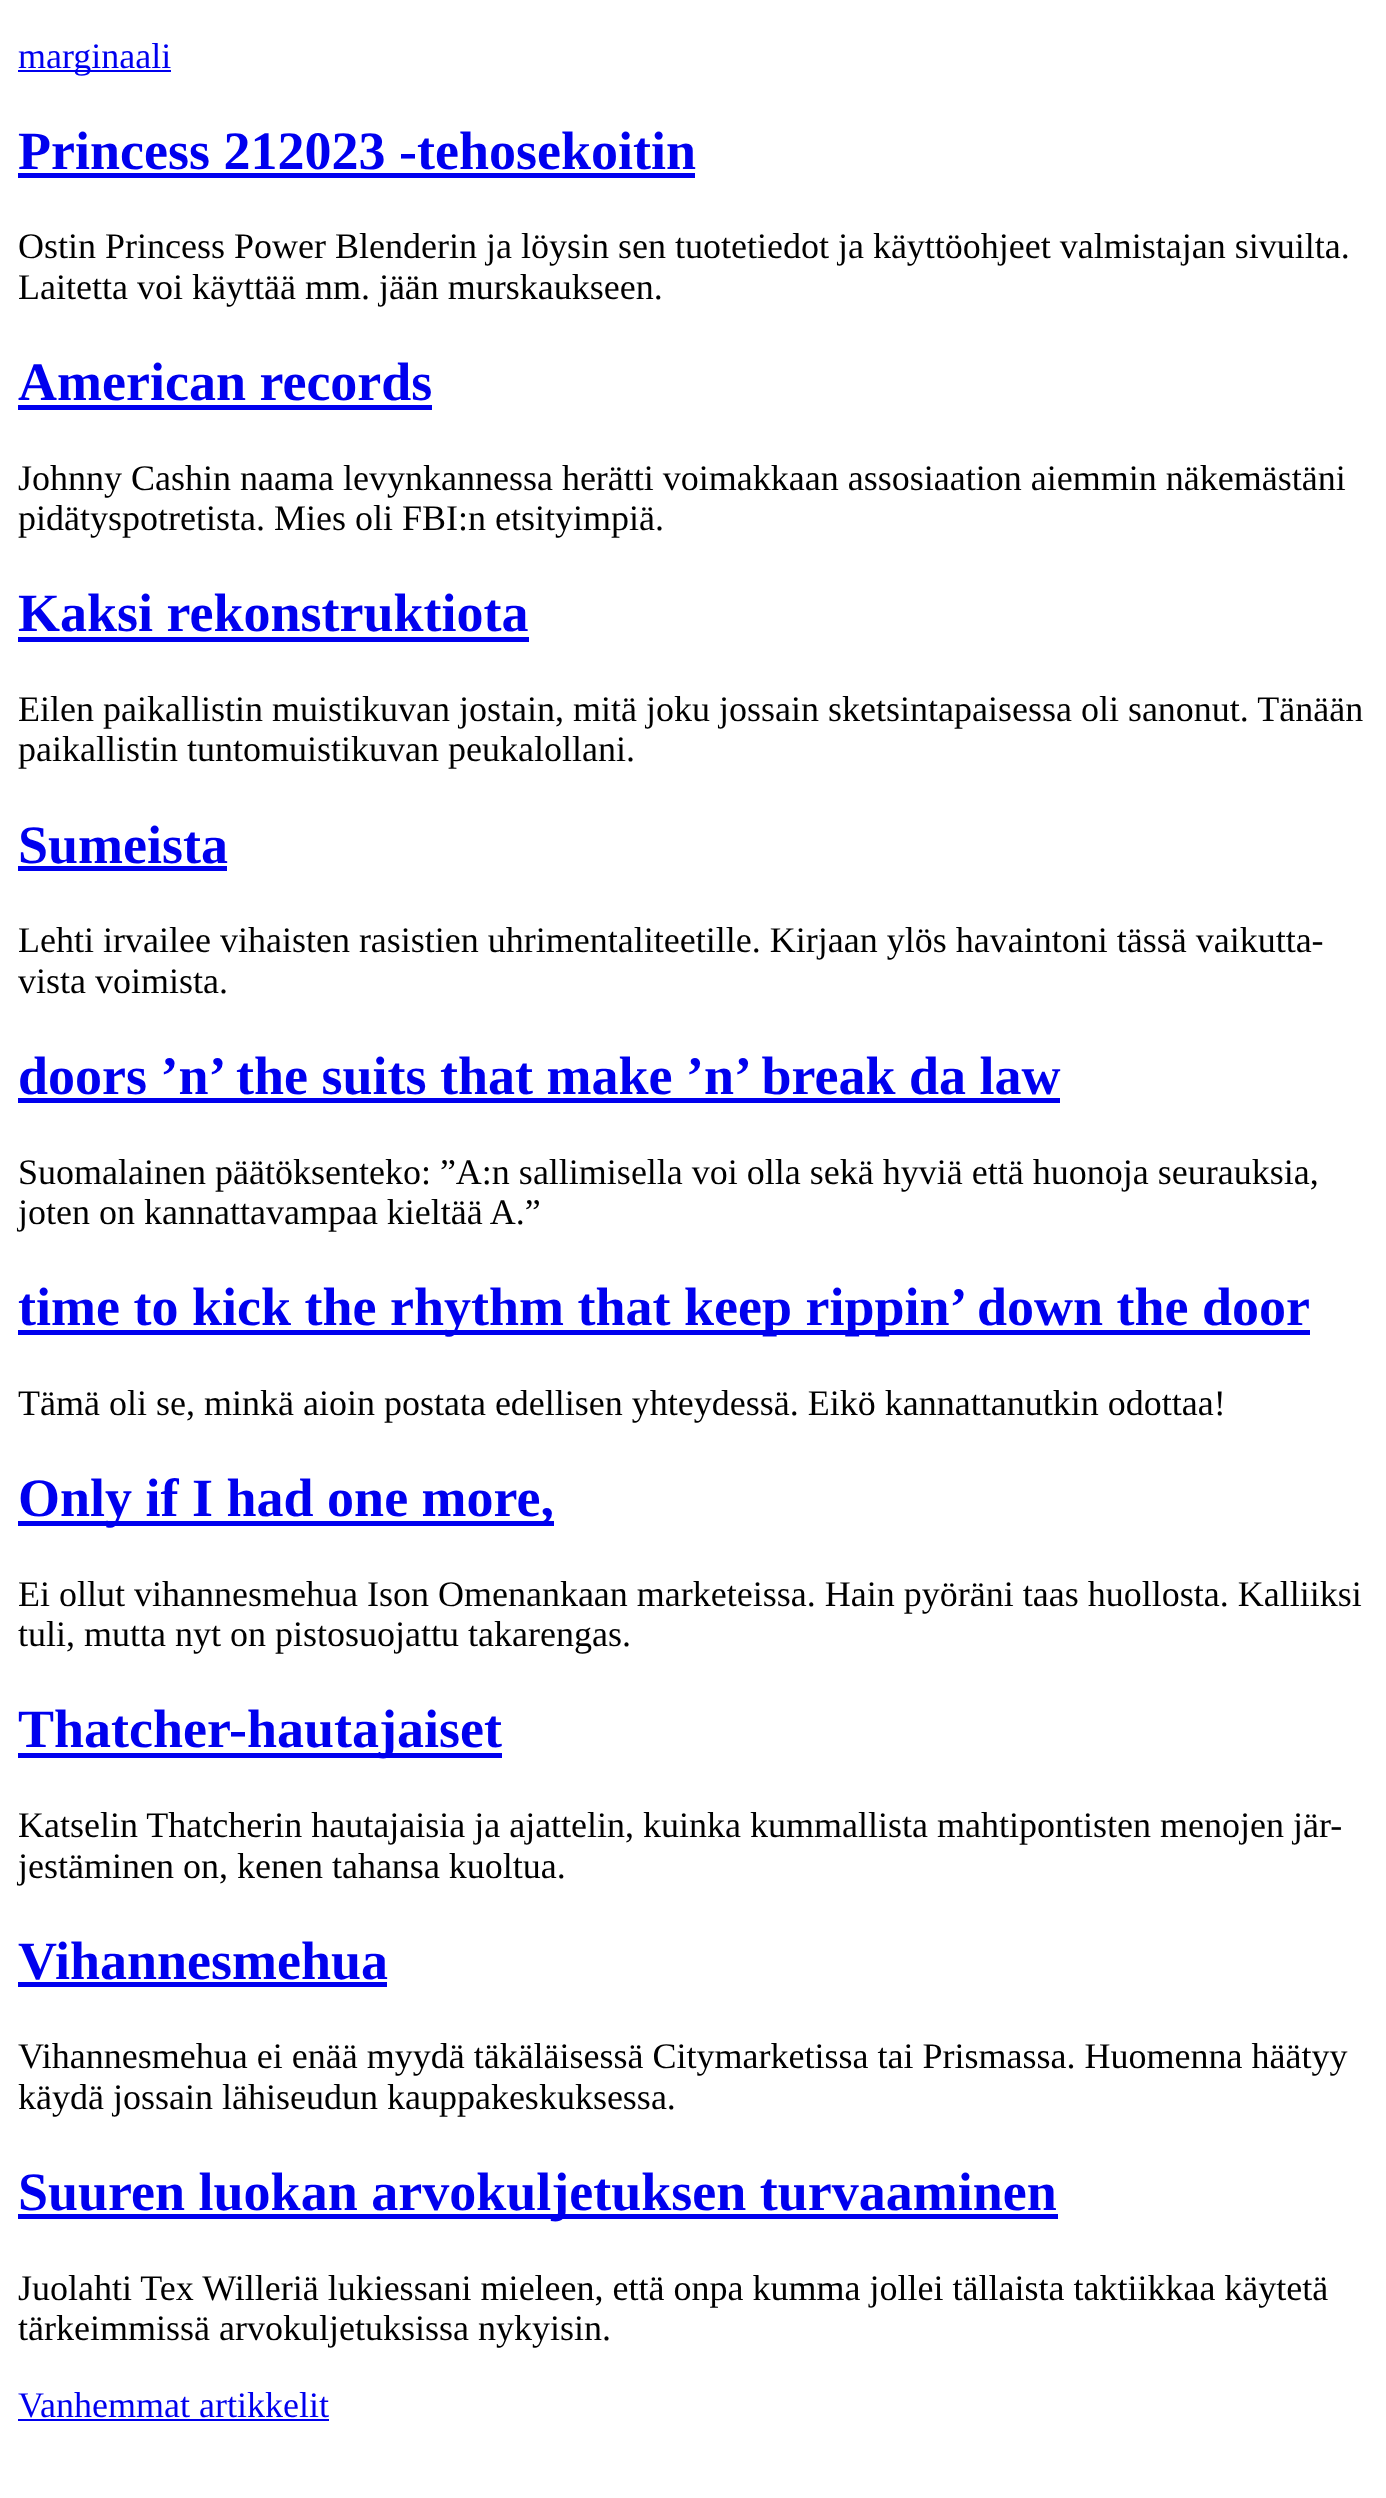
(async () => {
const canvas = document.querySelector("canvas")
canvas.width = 1386
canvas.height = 2498
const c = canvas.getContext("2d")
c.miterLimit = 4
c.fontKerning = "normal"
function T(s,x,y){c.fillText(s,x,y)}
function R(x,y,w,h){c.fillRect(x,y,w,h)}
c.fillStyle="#fff"
R(0,0,1386,2498)
c.fillStyle="#00e"
R(18,70,153,2)
c.font="36px Liberation Serif"
T("marginaali",18,68)
c.font="bold 54px Liberation Serif"
T("Princess 212023 -tehosekoitin",18,169)
R(18,173,677,5)
c.font="36px Liberation Serif"
c.fillStyle="#000"
T("Ostin Princess Power Blenderin ja löysin sen tuotetiedot ja käyttöohjeet valmistajan sivuilta.",18,258)
T("Laitetta voi käyttää mm. jään murskaukseen.",18,299)
c.font="bold 54px Liberation Serif"
c.fillStyle="#00e"
T("American records",18,400)
R(18,405,414,5)
c.font="36px Liberation Serif"
c.fillStyle="#000"
T("Johnny Cashin naama levynkannessa herätti voimakkaan assosiaation aiemmin näkemästäni",18,490)
T("pidätyspotretista. Mies oli FBI:n etsityimpiä.",18,530)
c.font="bold 54px Liberation Serif"
c.fillStyle="#00e"
T("Kaksi rekonstruktiota",18,631)
R(18,637,511,5)
c.font="36px Liberation Serif"
c.fillStyle="#000"
T("Eilen paikallistin muistikuvan jostain, mitä joku jossain sketsintapaisessa oli sanonut. Tänään",18,721)
T("paikallistin tuntomuistikuvan peukalollani.",18,761)
c.font="bold 54px Liberation Serif"
c.fillStyle="#00e"
T("Sumeista",18,863)
R(18,866,209,5)
c.font="36px Liberation Serif"
c.fillStyle="#000"
T("Lehti irvailee vihaisten rasistien uhrimentaliteetille. Kirjaan ylös havaintoni tässä vaikutta-",18,952)
T("vista voimista.",18,993)
c.font="bold 54px Liberation Serif"
c.fillStyle="#00e"
T("doors ’n’ the suits that make ’n’ break da law",18,1094)
R(18,1098,1042,5)
c.font="36px Liberation Serif"
c.fillStyle="#000"
T("Suomalainen päätöksenteko: ”A:n sallimisella voi olla sekä hyviä että huonoja seurauksia,",18,1184)
T("joten on kannattavampaa kieltää A.”",18,1224)
c.fillStyle="#00e"
R(18,1330,1292,5)
c.font="bold 54px Liberation Serif"
T("time to kick the rhythm that keep rippin’ down the door",18,1325)
c.font="36px Liberation Serif"
c.fillStyle="#000"
T("Tämä oli se, minkä aioin postata edellisen yhteydessä. Eikö kannattanutkin odottaa!",18,1415)
c.fillStyle="#00e"
R(18,1521,536,5)
c.font="bold 54px Liberation Serif"
T("Only if I had one more,",18,1516)
c.font="36px Liberation Serif"
c.fillStyle="#000"
T("Ei ollut vihannesmehua Ison Omenankaan marketeissa. Hain pyöräni taas huollosta. Kalliiksi",18,1606)
T("tuli, mutta nyt on pistosuojattu takarengas.",18,1646)
c.fillStyle="#00e"
R(18,1753,484,5)
c.font="bold 54px Liberation Serif"
T("Thatcher-hautajaiset",18,1747)
c.font="36px Liberation Serif"
c.fillStyle="#000"
T("Katselin Thatcherin hautajaisia ja ajattelin, kuinka kummallista mahtipontisten menojen jär-",18,1837)
T("jestäminen on, kenen tahansa kuoltua.",18,1878)
c.font="bold 54px Liberation Serif"
c.fillStyle="#00e"
T("Vihannesmehua",18,1979)
R(18,1982,369,5)
c.font="36px Liberation Serif"
c.fillStyle="#000"
T("Vihannesmehua ei enää myydä täkäläisessä Citymarketissa tai Prismassa. Huomenna häätyy",18,2068)
T("käydä jossain lähiseudun kauppakeskuksessa.",18,2109)
c.fillStyle="#00e"
R(18,2214,1040,5)
c.font="bold 54px Liberation Serif"
T("Suuren luokan arvokuljetuksen turvaaminen",18,2210)
c.font="36px Liberation Serif"
c.fillStyle="#000"
T("Juolahti Tex Willeriä lukiessani mieleen, että onpa kumma jollei tällaista taktiikkaa käytetä",18,2300)
T("tärkeimmissä arvokuljetuksissa nykyisin.",18,2340)
c.fillStyle="#00e"
T("Vanhemmat artikkelit",18,2417)
R(18,2419,311,2)
})()
